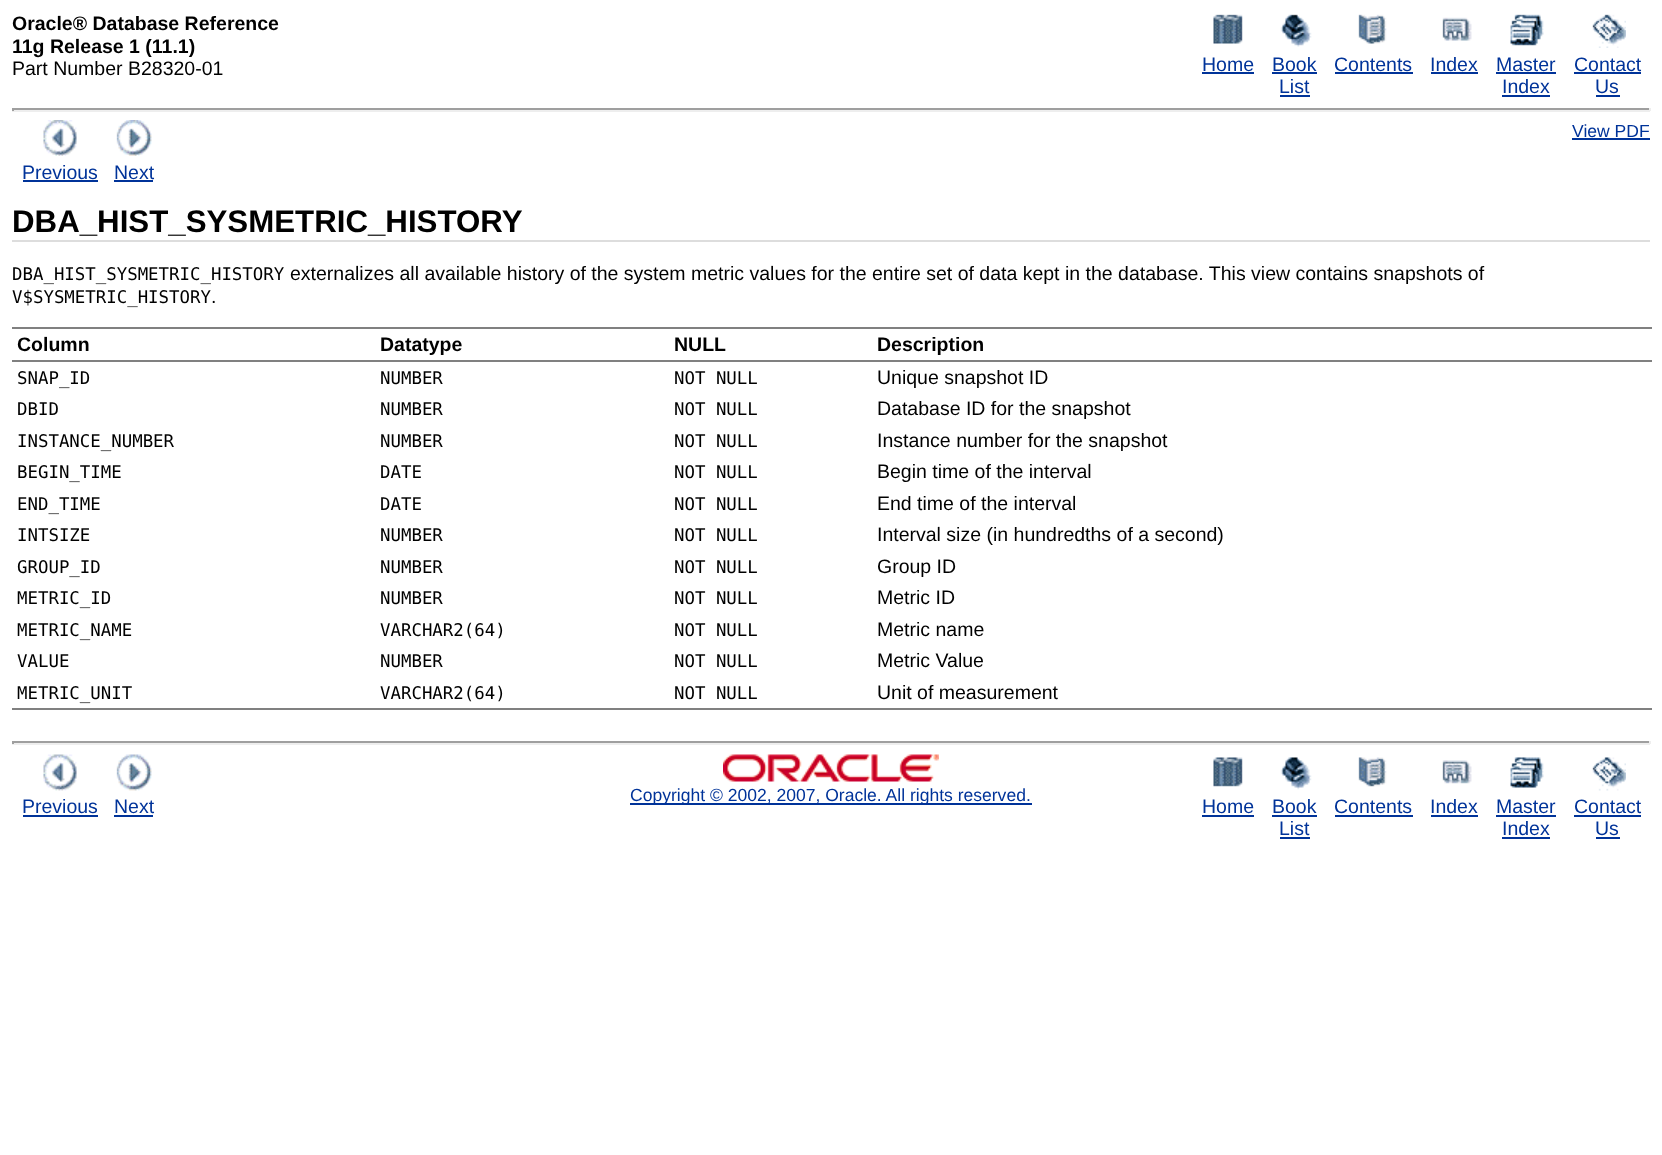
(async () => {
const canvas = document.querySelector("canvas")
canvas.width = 1662
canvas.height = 1155
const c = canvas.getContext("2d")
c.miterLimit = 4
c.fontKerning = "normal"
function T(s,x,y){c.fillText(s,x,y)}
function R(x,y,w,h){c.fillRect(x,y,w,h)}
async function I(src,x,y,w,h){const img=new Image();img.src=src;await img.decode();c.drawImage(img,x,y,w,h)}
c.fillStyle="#fff"
R(0,0,1662,1155)
c.font="bold 19.5px Liberation Sans"
c.fillStyle="#000"
T("Oracle® Database Reference",12,30)
T("11g Release 1 (11.1)",12,53)
c.font="19.5px Liberation Sans"
T("Part Number B28320-01",12,75)
await I("1.png",1213,14,30,30)
c.fillStyle="#039"
T("Home",1202,71)
R(1202,72,52,2)
await I("2.png",1280,14,32,33)
T("Book",1272,71)
R(1272,72,45,2)
T("List",1279,93)
R(1280,95,30,2)
await I("3.png",1358,14,29,30)
T("Contents",1334,71)
R(1335,72,78,2)
await I("4.png",1442,17,30,24)
T("Index",1430,71)
R(1431,72,47,2)
await I("5.png",1510,14,34,32)
T("Master",1496,71)
R(1496,72,60,2)
T("Index",1502,93)
R(1502,95,48,2)
await I("6.png",1592,14,34,34)
T("Contact",1574,71)
R(1574,72,67,2)
T("Us",1595,93)
R(1596,95,24,2)
c.fillStyle="#9f9f9f"
R(12,108,1638,2)
c.fillStyle="#eee"
R(1649,108,2,3)
R(12,110,1638,2)
c.fillStyle="#9f9f9f"
R(12,108,2,3)
c.font="17.55px Liberation Sans"
c.fillStyle="#039"
T("View PDF",1572,137)
R(1572,138,78,2)
await I("7.png",43,120,34,36)
c.font="19.5px Liberation Sans"
T("Previous",22,179)
R(23,180,75,2)
await I("8.png",116,120,36,36)
T("Next",114,179)
R(114,180,39,2)
c.fillStyle="#ddd"
R(12,240,1638,2)
c.font="bold 31.25px Liberation Sans"
c.fillStyle="#000"
T("DBA_HIST_SYSMETRIC_HISTORY",12,232)
c.font="17.4px DejaVu Sans Mono"
T("DBA_HIST_SYSMETRIC_HISTORY",12,280)
c.font="19.5px Liberation Sans"
T("externalizes all available history of the system metric values for the entire set of data kept in the database. This view contains snapshots of",290,280)
c.font="17.4px DejaVu Sans Mono"
T("V$SYSMETRIC_HISTORY",12,303)
c.font="19.5px Liberation Sans"
T(".",211,303)
c.fillStyle="#808080"
R(12,327,1640,2)
c.font="bold 19.5px Liberation Sans"
c.fillStyle="#000"
T("Column",17,351)
T("Datatype",380,351)
T("NULL",674,351)
T("Description",877,351)
c.fillStyle="#808080"
R(12,360,1640,2)
R(12,708,1640,2)
c.font="17.4px DejaVu Sans Mono"
c.fillStyle="#000"
T("SNAP_ID",17,384)
T("NUMBER",380,384)
T("NOT NULL",674,384)
c.font="19.5px Liberation Sans"
T("Unique snapshot ID",877,384)
c.font="17.4px DejaVu Sans Mono"
T("DBID",17,415)
T("NUMBER",380,415)
T("NOT NULL",674,415)
c.font="19.5px Liberation Sans"
T("Database ID for the snapshot",877,415)
c.font="17.4px DejaVu Sans Mono"
T("INSTANCE_NUMBER",17,447)
T("NUMBER",380,447)
T("NOT NULL",674,447)
c.font="19.5px Liberation Sans"
T("Instance number for the snapshot",877,447)
c.font="17.4px DejaVu Sans Mono"
T("BEGIN_TIME",17,478)
T("DATE",380,478)
T("NOT NULL",674,478)
c.font="19.5px Liberation Sans"
T("Begin time of the interval",877,478)
c.font="17.4px DejaVu Sans Mono"
T("END_TIME",17,510)
T("DATE",380,510)
T("NOT NULL",674,510)
c.font="19.5px Liberation Sans"
T("End time of the interval",877,510)
c.font="17.4px DejaVu Sans Mono"
T("INTSIZE",17,541)
T("NUMBER",380,541)
T("NOT NULL",674,541)
c.font="19.5px Liberation Sans"
T("Interval size (in hundredths of a second)",877,541)
c.font="17.4px DejaVu Sans Mono"
T("GROUP_ID",17,573)
T("NUMBER",380,573)
T("NOT NULL",674,573)
c.font="19.5px Liberation Sans"
T("Group ID",877,573)
c.font="17.4px DejaVu Sans Mono"
T("METRIC_ID",17,604)
T("NUMBER",380,604)
T("NOT NULL",674,604)
c.font="19.5px Liberation Sans"
T("Metric ID",877,604)
c.font="17.4px DejaVu Sans Mono"
T("METRIC_NAME",17,636)
T("VARCHAR2(64)",380,636)
T("NOT NULL",674,636)
c.font="19.5px Liberation Sans"
T("Metric name",877,636)
c.font="17.4px DejaVu Sans Mono"
T("VALUE",17,667)
T("NUMBER",380,667)
T("NOT NULL",674,667)
c.font="19.5px Liberation Sans"
T("Metric Value",877,667)
c.font="17.4px DejaVu Sans Mono"
T("METRIC_UNIT",17,699)
T("VARCHAR2(64)",380,699)
T("NOT NULL",674,699)
c.font="19.5px Liberation Sans"
T("Unit of measurement",877,699)
c.fillStyle="#9f9f9f"
R(12,741,1638,2)
c.fillStyle="#eee"
R(1649,741,2,3)
R(12,743,1638,2)
c.fillStyle="#9f9f9f"
R(12,741,2,3)
await I("9.png",43,754,34,37)
c.fillStyle="#039"
T("Previous",22,813)
R(23,815,75,2)
await I("10.png",116,754,36,37)
T("Next",114,813)
R(114,815,39,2)
await I("11.png",723,754,216,28)
R(630,803,402,2)
c.font="17.55px Liberation Sans"
T("Copyright © 2002, 2007, Oracle. All rights reserved.",630,801)
await I("12.png",1213,757,30,30)
c.font="19.5px Liberation Sans"
T("Home",1202,813)
R(1202,815,52,2)
await I("13.png",1280,757,32,33)
T("Book",1272,813)
R(1272,815,45,2)
T("List",1279,835)
R(1280,837,30,2)
await I("14.png",1358,757,29,30)
T("Contents",1334,813)
R(1335,815,78,2)
await I("15.png",1442,760,30,24)
T("Index",1430,813)
R(1431,815,47,2)
await I("16.png",1510,757,34,31)
T("Master",1496,813)
R(1496,815,60,2)
T("Index",1502,835)
R(1502,837,48,2)
await I("17.png",1592,757,34,34)
T("Contact",1574,813)
R(1574,815,67,2)
T("Us",1595,835)
R(1596,837,24,2)
})()
